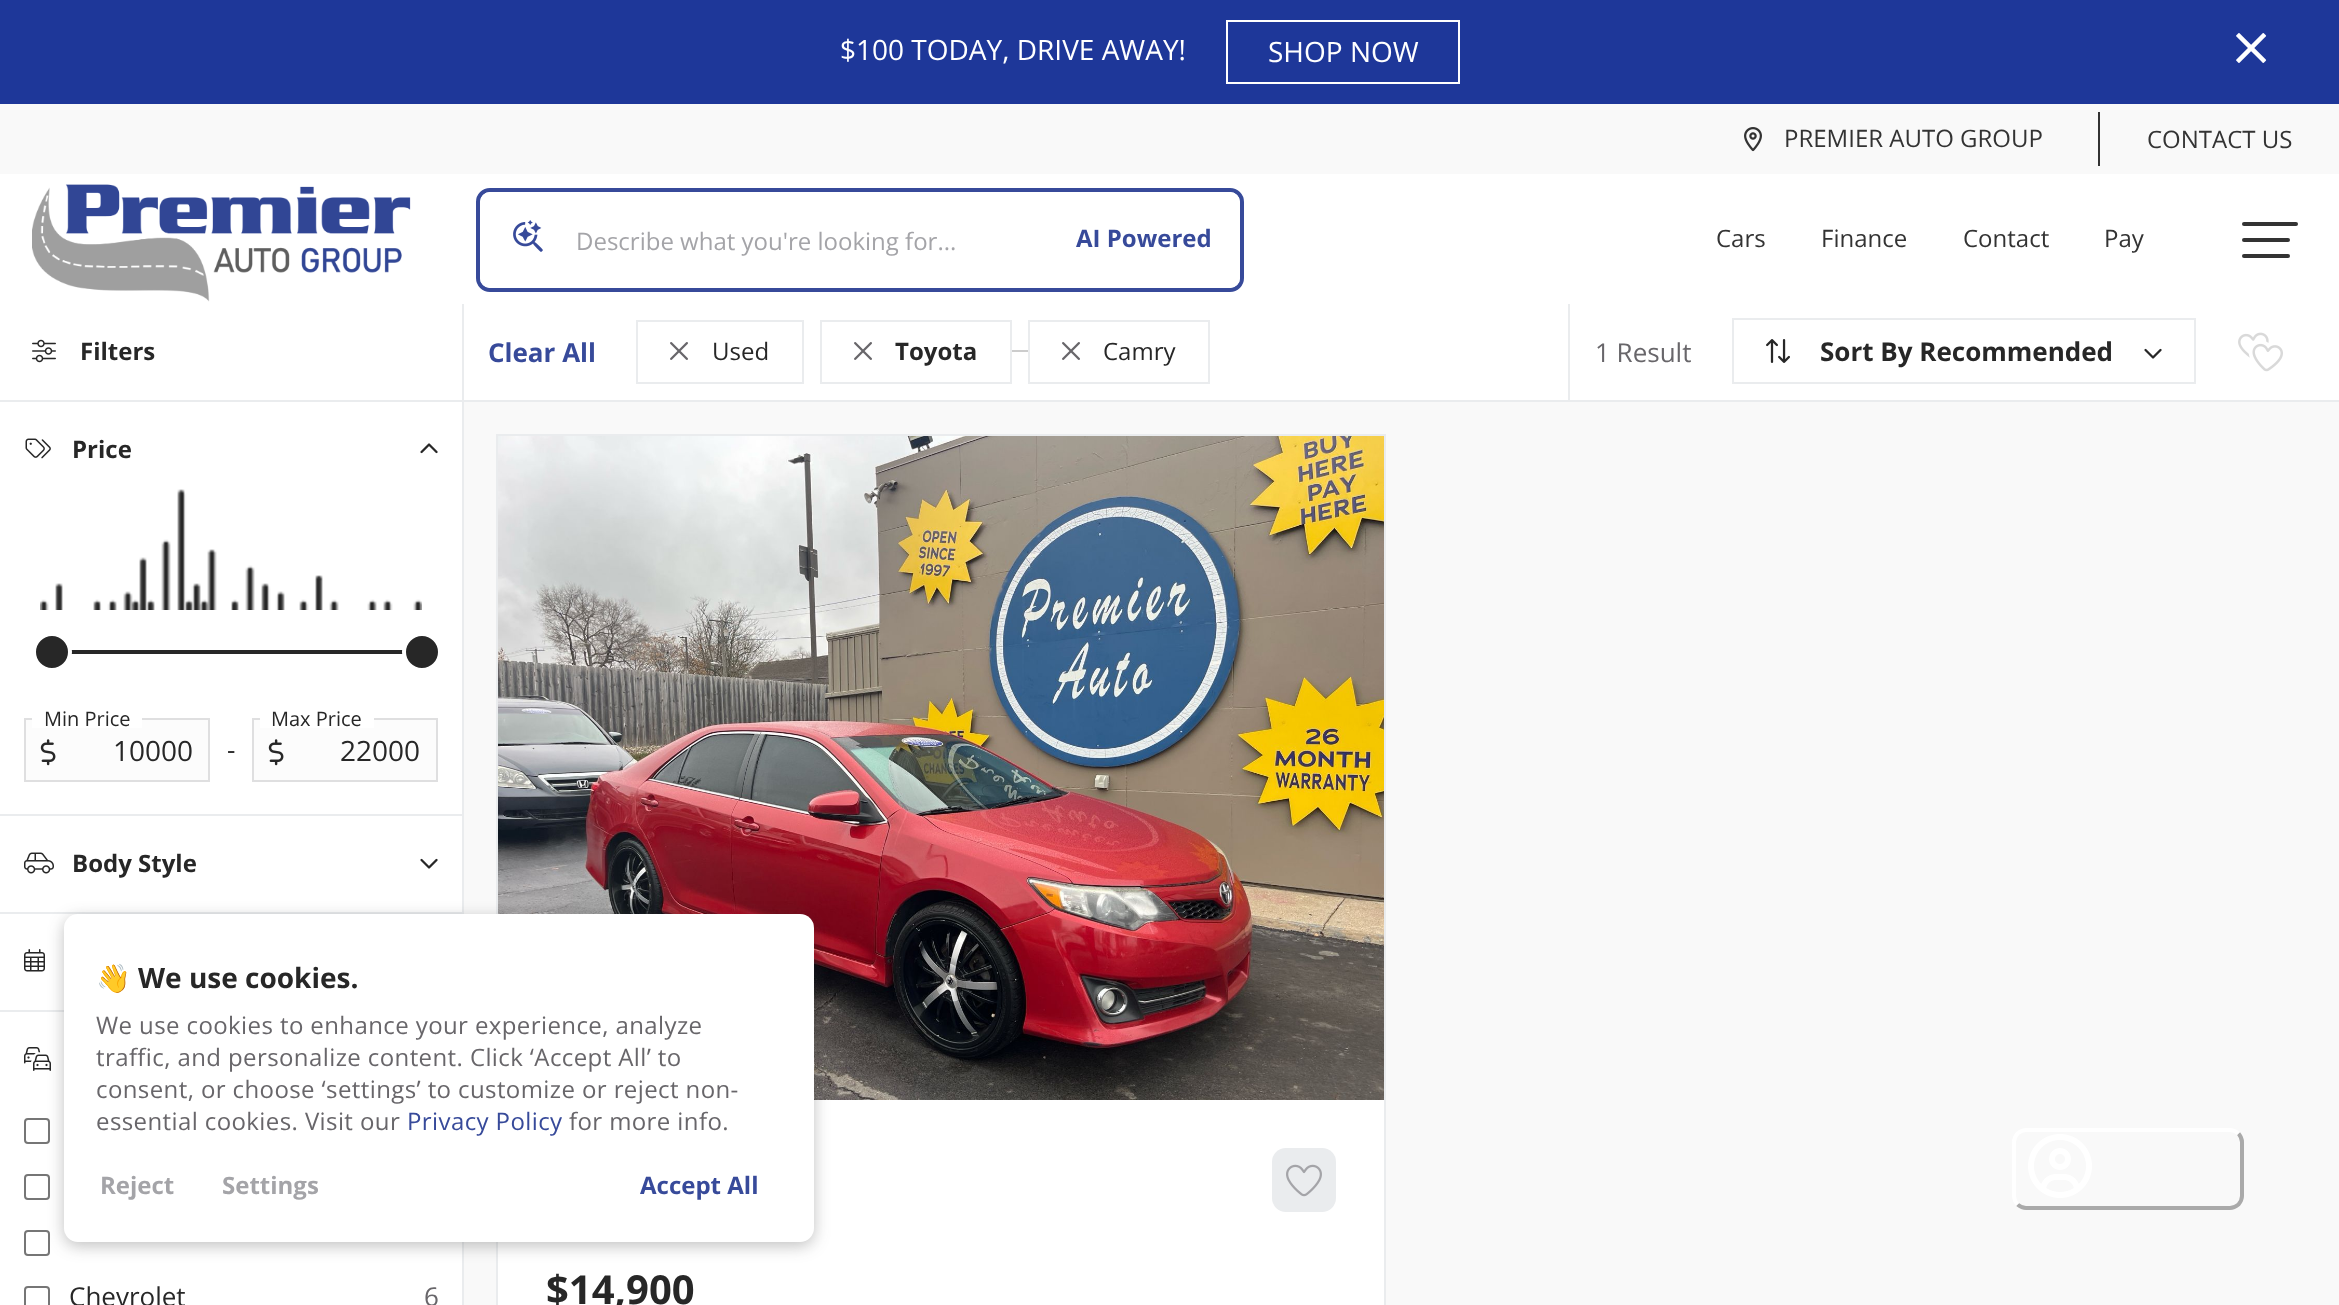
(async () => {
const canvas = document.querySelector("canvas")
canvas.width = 2339
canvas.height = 1305
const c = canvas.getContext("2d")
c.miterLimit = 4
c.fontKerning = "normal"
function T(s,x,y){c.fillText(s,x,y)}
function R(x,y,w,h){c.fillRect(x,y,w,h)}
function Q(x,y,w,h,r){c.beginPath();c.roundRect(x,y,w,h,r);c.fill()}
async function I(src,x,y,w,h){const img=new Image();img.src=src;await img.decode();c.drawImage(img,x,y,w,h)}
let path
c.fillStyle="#fff"
R(0,0,2339,1305)
c.fillStyle="#1e3799"
R(0,0,2339,104)
c.font="28px Open Sans"
c.fillStyle="#fff"
T("$100 TODAY, DRIVE AWAY!",840,60)
c.strokeStyle="#fff"
c.lineWidth=2
c.strokeRect(1227,21,232,62)
T("SHOP NOW",1268,62)
await I("1.png",2236,33,31,30)
c.fillStyle="#f9f9f9"
R(0,104,2339,70)
await I("2.png",1744,127,18,25)
c.font="24px Open Sans"
c.fillStyle="#333"
T("PREMIER AUTO GROUP",1784,147)
R(2098,112,2,54)
T("CONTACT US",2147,148)
await I("3.png",32,184,379,118)
c.beginPath()
c.roundRect(478,190,764,100,12)
c.strokeStyle="#374a9a"
c.lineWidth=4
c.stroke()
c.fillStyle="#fff"
Q(480,192,760,96,10)
await I("4.png",513,220,30,32)
c.fillStyle="#a4a4a8"
T("Describe what you're looking for...",576,250)
c.font="bold 24px Open Sans"
c.fillStyle="#374a9a"
T("AI Powered",1076,247)
c.font="24px Open Sans"
c.fillStyle="#333"
T("Cars",1716,247)
T("Finance",1821,247)
T("Contact",1963,247)
T("Pay",2104,247)
Q(2242,222,56,4,2)
Q(2242,238,48,4,2)
Q(2242,254,48,4,2)
c.fillStyle="#eaecee"
R(462,304,2,1001)
R(0,912,462,2)
R(0,1010,64,2)
await I("12.png",24,949,21,23)
await I("13.png",24,1047,27,24)
c.beginPath()
c.roundRect(25,1119,24,24,3)
c.strokeStyle="#767676"
c.lineWidth=2
c.stroke()
c.beginPath()
c.roundRect(25,1175,24,24,3)
c.stroke()
c.beginPath()
c.roundRect(25,1231,24,24,3)
c.stroke()
c.fillStyle="#f9f9f9"
R(464,402,1875,903)
c.fillStyle="#fff"
R(498,1100,886,205)
c.strokeStyle="#eaecee"
c.strokeRect(497,435,888,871)
await I("17.png",498,436,886,664)
c.fillStyle="#3333334d"
c.filter="blur(8px)"
c.beginPath()
c.roundRect(64,918,750,328,14)
c.fill()
c.filter="none"
c.fillStyle="#fff"
Q(64,914,750,328,14)
c.font="bold 28px Noto Color Emoji"
c.fillStyle="#272727"
T("👋",96,988)
c.font="bold 28px Open Sans"
T("We use cookies.",138,988)
c.letterSpacing="0.4px"
c.font="24px Open Sans"
c.fillStyle="#68666a"
T("We use cookies to enhance your experience, analyze",96,1034)
T("traffic, and personalize content. Click ‘Accept All’ to",96,1066)
T("consent, or choose ‘settings’ to customize or reject non-",96,1098)
T("essential cookies. Visit our",96,1130)
c.fillStyle="#374a9a"
T("Privacy Policy",407,1130)
c.fillStyle="#68666a"
T("for more info.",569,1130)
c.letterSpacing="0px"
c.font="bold 24px Open Sans"
c.fillStyle="#a4a4a8"
T("Reject",100,1194)
T("Settings",222,1194)
c.fillStyle="#374a9a"
T("Accept All",640,1194)
c.fillStyle="#eaecee"
R(0,400,462,2)
await I("5.png",32,339,24,24)
c.fillStyle="#272727"
T("Filters",80,360)
c.fillStyle="#eaecee"
R(0,814,462,2)
await I("6.png",25,438,26,21)
c.fillStyle="#272727"
T("Price",72,458)
await I("7.png",420,443,18,11)
await I("8.png",40,489,382,121)
R(71,650,332,4)
c.beginPath()
c.arc(52,652,18,0,7)
c.fill()
c.strokeStyle="#fff"
c.lineWidth=4
c.stroke()
c.save()
c.beginPath()
c.rect(24,482,414,316)
c.clip()
c.beginPath()
c.arc(422,652,18,0,7)
c.fill()
c.stroke()
c.restore()
c.fillStyle="#fcfcfc"
c.beginPath()
c.rect(25,719,184,62)
c.fill()
c.strokeStyle="#dfdfe0"
c.lineWidth=2
c.stroke()
c.fillStyle="#fff"
R(32,718,110,10)
c.font="20px Open Sans"
c.fillStyle="#272727"
T("Min Price",44,726)
await I("9.png",40,739,16,27)
c.font="28px Open Sans"
T("10000",113,761)
c.font="26px Open Sans"
T("-",227,759)
c.fillStyle="#fcfcfc"
c.beginPath()
c.rect(253,719,184,62)
c.fill()
c.stroke()
c.fillStyle="#fff"
R(260,718,114,10)
c.font="20px Open Sans"
c.fillStyle="#272727"
T("Max Price",271,726)
await I("9.png",268,739,16,27)
c.font="28px Open Sans"
T("22000",340,761)
await I("10.png",24,852,30,22)
c.font="bold 24px Open Sans"
T("Body Style",72,872)
await I("11.png",420,858,18,11)
c.beginPath()
c.roundRect(25,1287,24,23,3)
c.strokeStyle="#767676"
c.stroke()
c.font="26px Open Sans"
T("Chevrolet",69,1306)
c.fillStyle="#68666a"
T("6",424,1306)
c.fillStyle="#eaecee"
R(464,400,1875,2)
c.font="bold 26px Open Sans"
c.fillStyle="#374a9a"
T("Clear All",488,362)
c.strokeStyle="#eaecee"
c.strokeRect(637,321,166,62)
await I("14.png",670,342,18,18)
c.font="24px Open Sans"
c.fillStyle="#272727"
T("Used",712,360)
c.strokeRect(821,321,190,62)
await I("14.png",854,342,18,18)
c.font="bold 24px Open Sans"
T("Toyota",895,360)
c.strokeRect(1029,321,180,62)
c.fillStyle="#ccc"
R(1012,350,16,2)
await I("14.png",1062,342,18,18)
c.font="24px Open Sans"
c.fillStyle="#272727"
T("Camry",1103,360)
c.fillStyle="#eaecee"
R(1568,304,2,96)
c.font="26px Open Sans"
c.fillStyle="#68666a"
T("1 Result",1595,362)
c.strokeRect(1733,319,462,64)
await I("15.png",1766,339,24,24)
c.font="bold 26px Open Sans"
c.fillStyle="#272727"
T("Sort By Recommended",1820,361)
await I("11.png",2144,348,18,11)
await I("16.png",2238,332,45,40)
c.fillStyle="#eaecee"
Q(1272,1148,64,64,14)
await I("18.png",1286,1164,36,33)
c.font="bold 40px Open Sans"
c.fillStyle="#272727"
T("$14,900",546,1304)
path = new Path2D("M2238.5 1133.5c2 2.5 3.5 5.5 3.5 8.5v54c0 3-1.5 6-3.5 8.5c-2.5 2-5.5 3.5-8.5 3.5h-204c-3 0-6-1.5-8.5-3.5")
c.strokeStyle="#aaa"
c.lineWidth=4
c.stroke(path)
path = new Path2D("M2017.5 1204.5c-2-2.5-3.5-5.5-3.5-8.5v-54c0-3 1.5-6 3.5-8.5c2.5-2 5.5-3.5 8.5-3.5h204c3 0 6 1.5 8.5 3.5")
c.strokeStyle="#fff"
c.stroke(path)
await I("19.png",2028,1134,64,64)
})()
